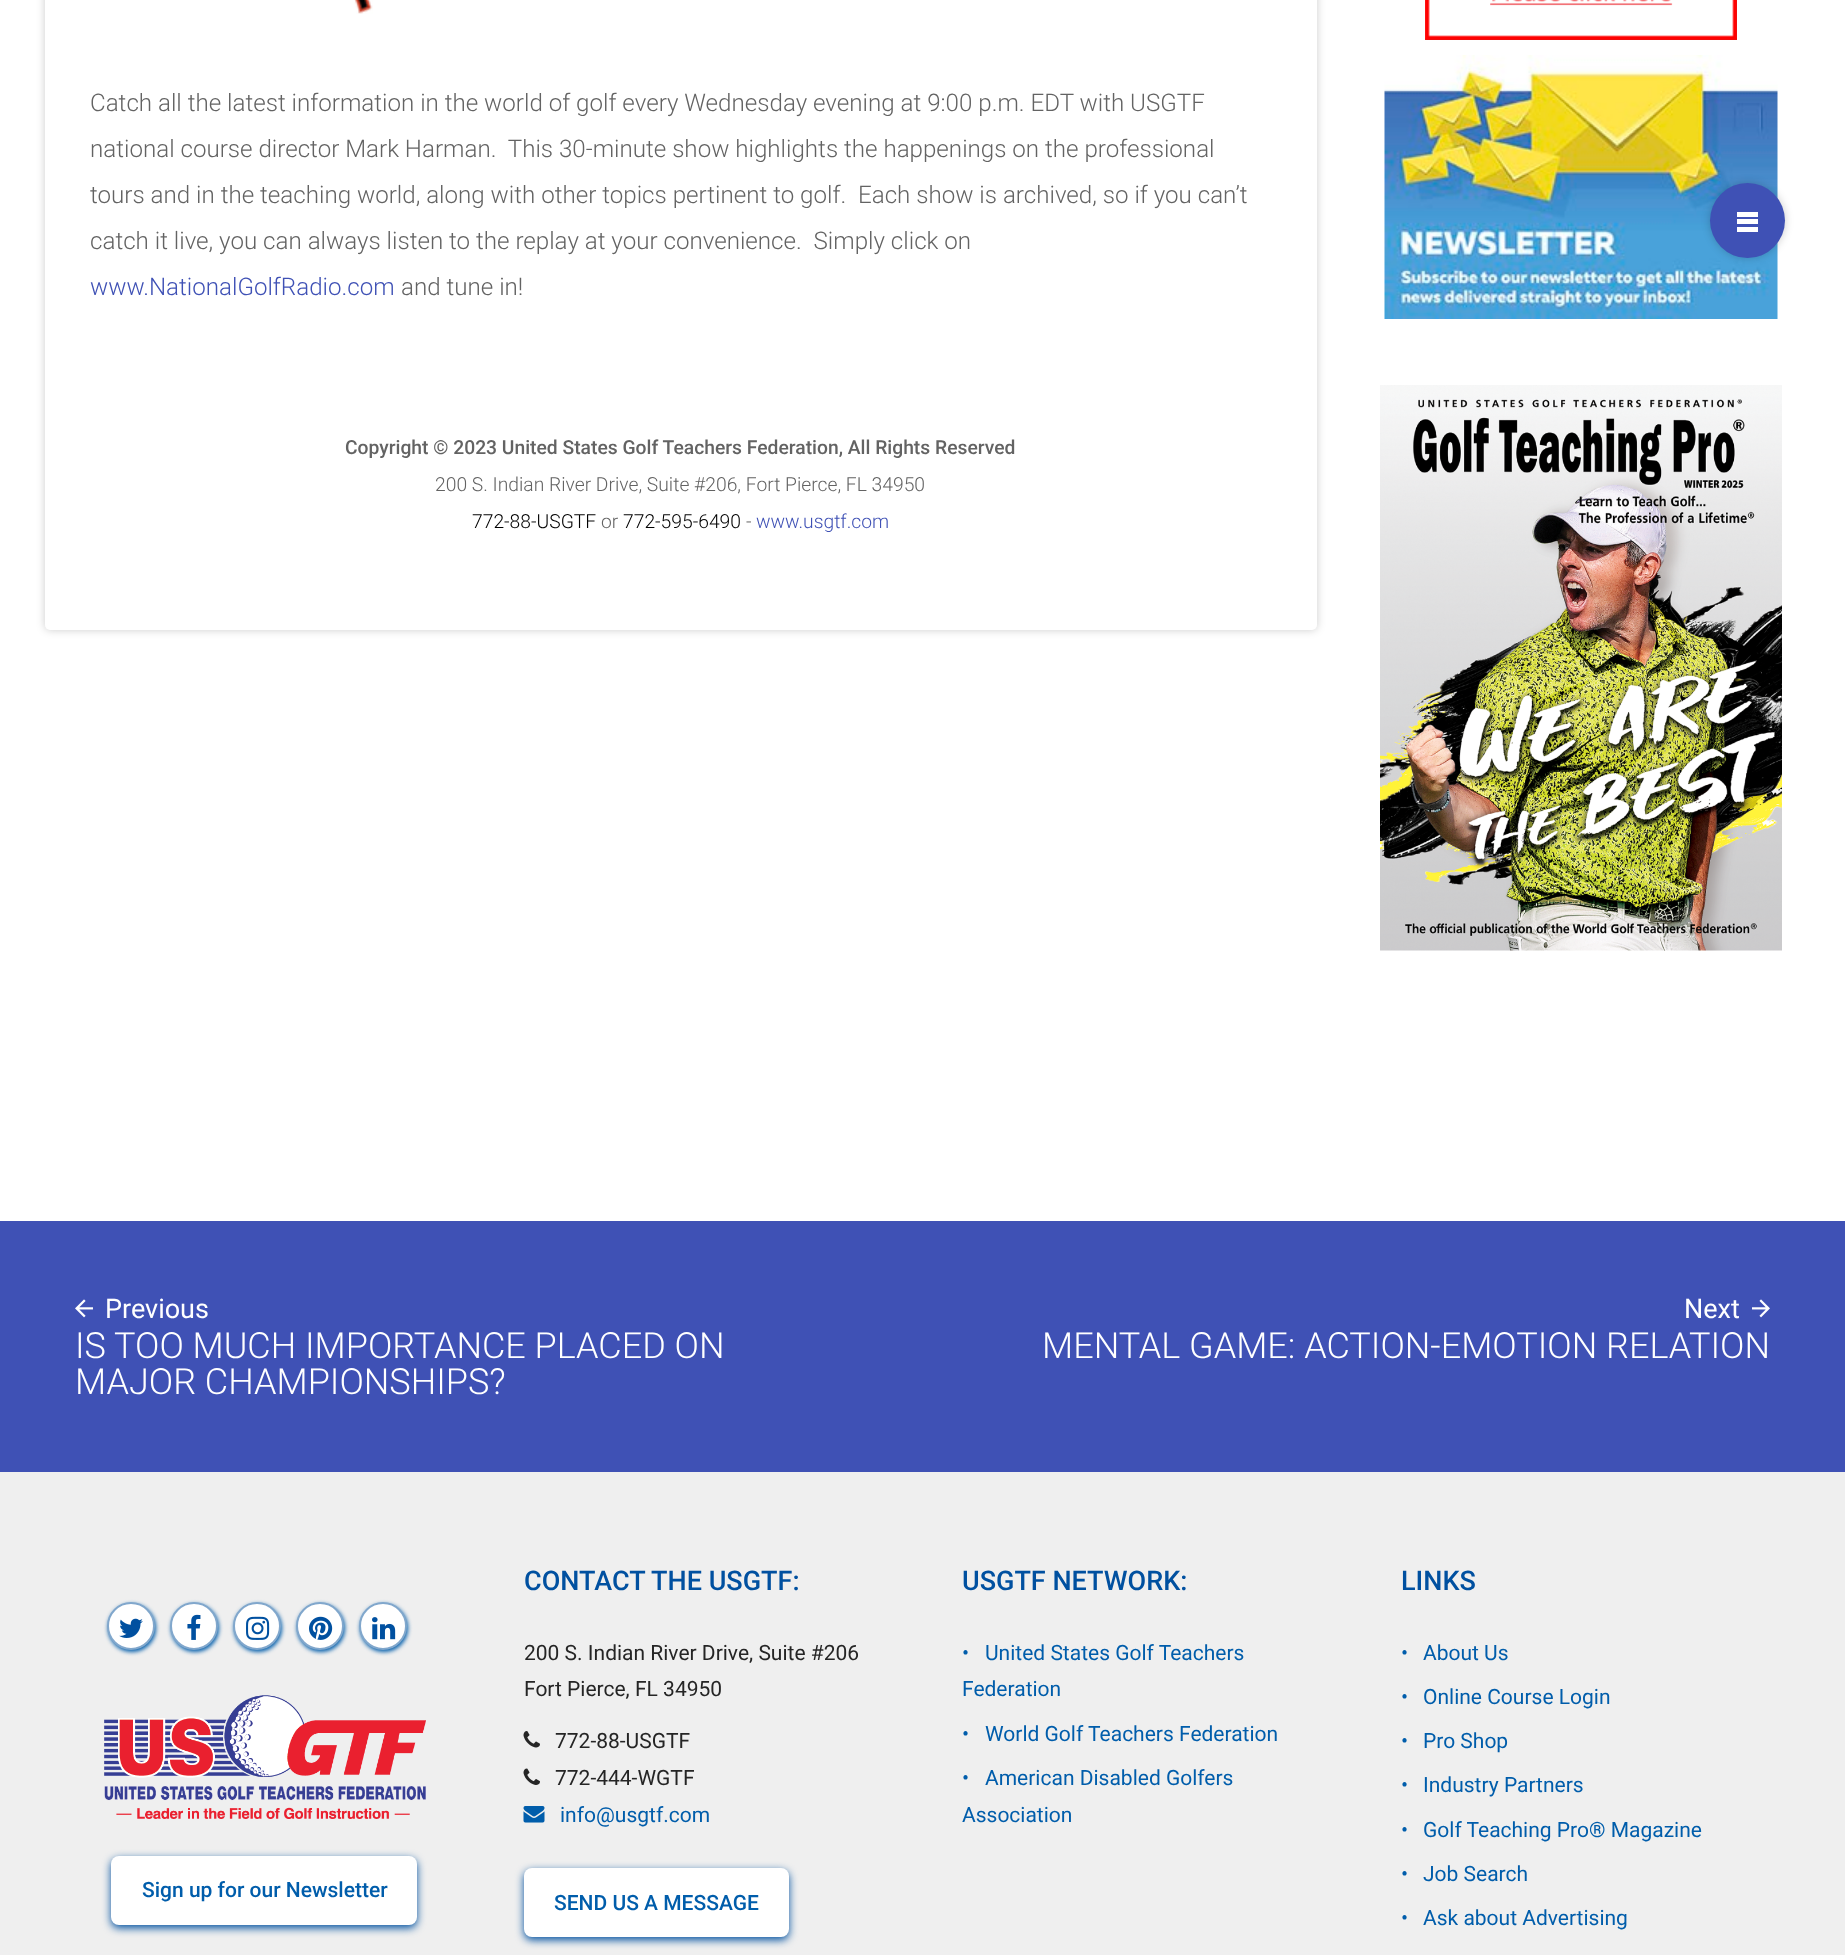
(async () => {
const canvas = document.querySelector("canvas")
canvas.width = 1845
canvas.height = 1955
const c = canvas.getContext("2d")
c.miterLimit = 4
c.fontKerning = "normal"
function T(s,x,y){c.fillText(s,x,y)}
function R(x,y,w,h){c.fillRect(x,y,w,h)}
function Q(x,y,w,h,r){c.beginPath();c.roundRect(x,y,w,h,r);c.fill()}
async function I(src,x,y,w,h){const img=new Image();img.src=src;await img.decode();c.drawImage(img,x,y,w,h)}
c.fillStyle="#fff"
R(0,0,1845,1955)
await I("1.png",1425,0,312,40)
await I("2.png",1384,55,394,264)
await I("3.png",1380,385,402,566)
c.fillStyle="#00000033"
c.filter="blur(4px)"
c.beginPath()
c.roundRect(45,-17,1272,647,5)
c.fill()
c.filter="none"
c.fillStyle="#fff"
Q(45,-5,1272,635,5)
await I("4.png",354,0,19,14)
c.font="300 24.15px Roboto"
c.fillStyle="#636363"
T("Catch all the latest information in the world of golf every Wednesday evening at 9:00 p.m. EDT with USGTF",90,111)
T("national course director Mark Harman.  This 30-minute show highlights the happenings on the professional",90,157)
T("tours and in the teaching world, along with other topics pertinent to golf.  Each show is archived, so if you can’t",90,203)
T("catch it live, you can always listen to the replay at your convenience.  Simply click on",90,249)
c.fillStyle="#3f51b5"
T("www.NationalGolfRadio.com",90,295)
c.fillStyle="#636363"
T("and tune in!",401,295)
c.font="500 19.3px Roboto"
T("Copyright © 2023 United States Golf Teachers Federation, All Rights Reserved",345,454)
c.font="300 19.3px Roboto"
T("200 S. Indian River Drive, Suite #206, Fort Pierce, FL 34950",435,491)
c.fillStyle="#000"
T("772-88-USGTF",472,528)
c.fillStyle="#636363"
T("or",601,528)
c.fillStyle="#000"
T("772-595-6490",623,528)
c.fillStyle="#636363"
T("-",746,528)
c.fillStyle="#3f51b5"
T("www.usgtf.com",756,528)
R(0,1221,1845,251)
await I("5.png",75,1299,18,19)
c.font="27px Roboto"
c.fillStyle="#fff"
T("Previous",105,1318)
c.font="300 36px Roboto"
T("IS TOO MUCH IMPORTANCE PLACED ON",75,1358)
T("MAJOR CHAMPIONSHIPS?",75,1394)
c.font="27px Roboto"
T("Next",1684,1318)
await I("6.png",1752,1299,18,19)
c.font="300 36px Roboto"
T("MENTAL GAME: ACTION-EMOTION RELATION",1042,1358)
c.fillStyle="#efefef"
R(0,1472,1845,483)
c.fillStyle="#005dab"
c.filter="blur(2px)"
c.beginPath()
c.roundRect(108,1604,48,48,24)
c.fill()
c.filter="none"
c.fillStyle="#fff"
c.beginPath()
c.arc(131,1626,23,0,7)
c.fill()
c.strokeStyle="#81a7cc"
c.lineWidth=2
c.stroke()
await I("7.png",119,1618,24,20)
c.fillStyle="#005dab"
c.filter="blur(2px)"
c.beginPath()
c.roundRect(171,1604,48,48,24)
c.fill()
c.filter="none"
c.fillStyle="#fff"
c.beginPath()
c.arc(194,1626,23,0,7)
c.fill()
c.stroke()
await I("8.png",187,1614,14,26)
c.fillStyle="#005dab"
c.filter="blur(2px)"
c.beginPath()
c.roundRect(234,1604,48,48,24)
c.fill()
c.filter="none"
c.fillStyle="#fff"
c.beginPath()
c.arc(257,1626,23,0,7)
c.fill()
c.stroke()
await I("9.png",246,1616,24,24)
c.fillStyle="#005dab"
c.filter="blur(2px)"
c.beginPath()
c.roundRect(297,1604,48,48,24)
c.fill()
c.filter="none"
c.fillStyle="#fff"
c.beginPath()
c.arc(320,1626,23,0,7)
c.fill()
c.stroke()
await I("10.png",309,1616,24,24)
c.fillStyle="#005dab"
c.filter="blur(2px)"
c.beginPath()
c.roundRect(360,1604,48,48,24)
c.fill()
c.filter="none"
c.fillStyle="#fff"
c.beginPath()
c.arc(383,1626,23,0,7)
c.fill()
c.stroke()
await I("11.png",372,1617,24,23)
await I("12.png",104,1695,322,124)
c.fillStyle="#0050a0"
c.filter="blur(4px)"
c.beginPath()
c.roundRect(111,1859,306,69,8)
c.fill()
c.filter="none"
c.fillStyle="#fff"
Q(111,1856,306,69,8)
c.font="500 21px Roboto"
c.fillStyle="#005dab"
T("Sign up for our Newsletter",142,1897)
c.font="500 27px Roboto"
c.fillStyle="#0050a0"
T("CONTACT THE USGTF:",524,1590)
c.font="21px Roboto"
c.fillStyle="#252525"
T("200 S. Indian River Drive, Suite #206",524,1660)
T("Fort Pierce, FL 34950",524,1696)
await I("13.png",523,1731,17,17)
T("772-88-USGTF",555,1748)
await I("14.png",523,1768,17,17)
T("772-444-WGTF",555,1785)
await I("15.png",523,1806,22,17)
c.fillStyle="#005dab"
T("info@usgtf.com",560,1822)
c.fillStyle="#0050a0"
c.filter="blur(4px)"
c.beginPath()
c.roundRect(524,1871,265,69,8)
c.fill()
c.filter="none"
c.fillStyle="#fff"
Q(524,1868,265,69,8)
c.font="500 21px Roboto"
c.fillStyle="#005dab"
T("SEND US A MESSAGE",554,1910)
c.font="500 27px Roboto"
c.fillStyle="#0050a0"
T("USGTF NETWORK:",962,1590)
c.font="21px Roboto"
c.fillStyle="#005dab"
T("•",962,1660)
T("United States Golf Teachers",985,1660)
T("Federation",962,1696)
T("•",962,1741)
T("World Golf Teachers Federation",985,1741)
T("•",962,1785)
T("American Disabled Golfers",985,1785)
T("Association",962,1822)
c.font="500 27px Roboto"
c.fillStyle="#0050a0"
T("LINKS",1401,1590)
c.font="21px Roboto"
c.fillStyle="#005dab"
T("•",1401,1660)
T("About Us",1423,1660)
T("•",1401,1704)
T("Online Course Login",1423,1704)
T("•",1401,1748)
T("Pro Shop",1423,1748)
T("•",1401,1792)
T("Industry Partners",1423,1792)
T("•",1401,1837)
T("Golf Teaching Pro® Magazine",1423,1837)
T("•",1401,1881)
T("Job Search",1423,1881)
T("•",1401,1925)
T("Ask about Advertising",1423,1925)
c.fillStyle="#00000033"
c.filter="blur(4px)"
c.beginPath()
c.roundRect(1710,183,75,75,37.5)
c.fill()
c.filter="none"
c.fillStyle="#3f51b5"
c.beginPath()
c.arc(1747.5,220.5,37.5,0,7)
c.fill()
c.fillStyle="#fff"
R(1737,219,21,5)
R(1737,212,21,5)
R(1737,227,21,5)
})()
